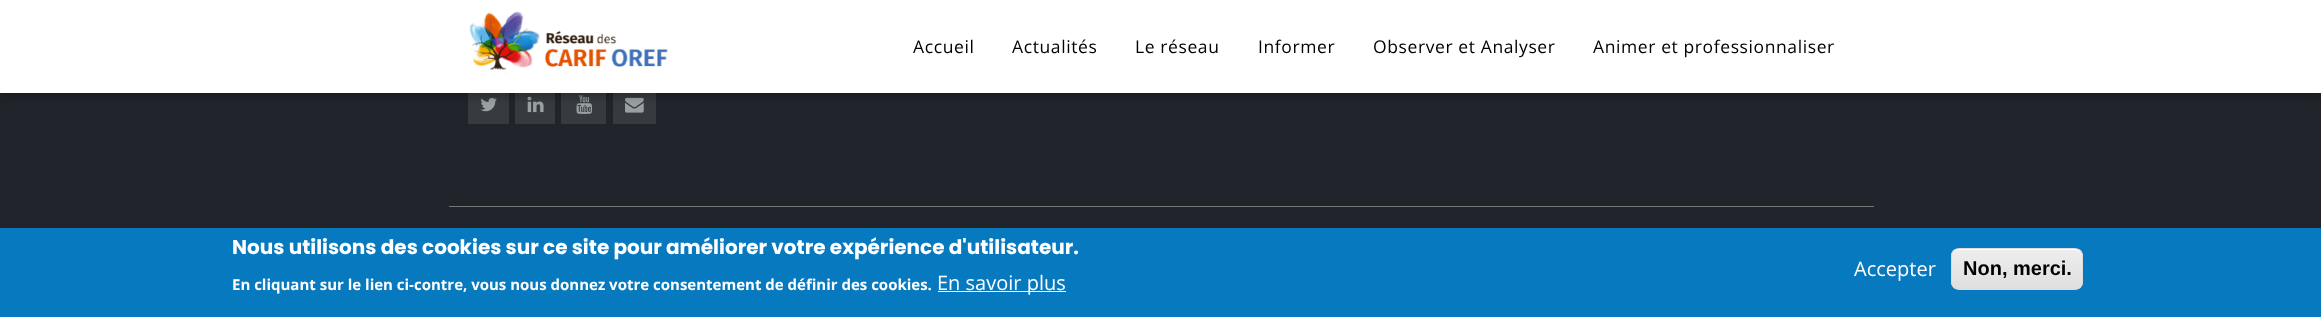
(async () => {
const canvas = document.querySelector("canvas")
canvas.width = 2321
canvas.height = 317
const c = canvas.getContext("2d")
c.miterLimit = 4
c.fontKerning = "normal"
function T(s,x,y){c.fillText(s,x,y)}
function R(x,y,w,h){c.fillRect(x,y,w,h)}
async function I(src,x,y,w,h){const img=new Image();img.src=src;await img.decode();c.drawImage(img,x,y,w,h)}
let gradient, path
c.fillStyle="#21252b"
R(0,0,2321,317)
c.fillStyle="#373b40"
R(468,93,41,31)
await I("2.png",480,97,17,15)
R(515,93,40,31)
await I("3.png",527,96,17,17)
R(561,93,45,31)
await I("4.png",576,95,16,19)
R(613,93,43,31)
await I("5.png",625,97,19,16)
c.fillStyle="#0000004d"
c.filter="blur(4.5px)"
c.beginPath()
c.rect(0,4,2321,92)
c.fill()
c.filter="none"
c.fillStyle="#fff"
R(0,0,2321,93)
await I("1.png",469,11,199,63)
c.letterSpacing="0.6px"
c.font="17.5px Open Sans"
c.fillStyle="#000"
T("Accueil",913,53)
T("Actualités",1012,53)
T("Le réseau",1135,53)
T("Informer",1258,53)
T("Observer et Analyser",1373,53)
T("Animer et professionnaliser",1593,53)
c.fillStyle="#777"
R(449,206,1425,1)
c.fillStyle="#0779bf"
R(0,228,2321,89)
c.letterSpacing="0px"
c.font="bold 20px Poppins"
c.fillStyle="#fff"
T("Nous utilisons des cookies sur ce site pour améliorer votre expérience d'utilisateur.",232,254)
c.font="bold 15px Open Sans"
T("En cliquant sur le lien ci-contre, vous nous donnez votre consentement de définir des cookies.",232,290)
R(938,291,128,1)
c.font="20px Open Sans"
T("En savoir plus",937,290)
T("Accepter",1854,276)
c.save()
c.beginPath()
c.roundRect(1951,248,132,42,8)
c.clip()
gradient = c.createLinearGradient(2017,249,2017,289)
gradient.addColorStop(.05,"#ededed")
gradient.addColorStop(1,"#dfdfdf")
c.fillStyle = gradient
R(1951,249,132,40)
c.restore()
path = new Path2D("M1959 250h116c3 0 6 3 6 6v-1c0-3-3-6-6-6h-116c-2 0-4 1-5 3c1-1 3-2 5-2z")
c.fill(path)
c.beginPath()
c.roundRect(1951.5,248.5,131,41,7.5)
c.strokeStyle="#dcdcdc"
c.stroke()
c.font="bold 20px Liberation Sans"
c.fillStyle="#000"
T("Non, merci.",1963,275)
})()
